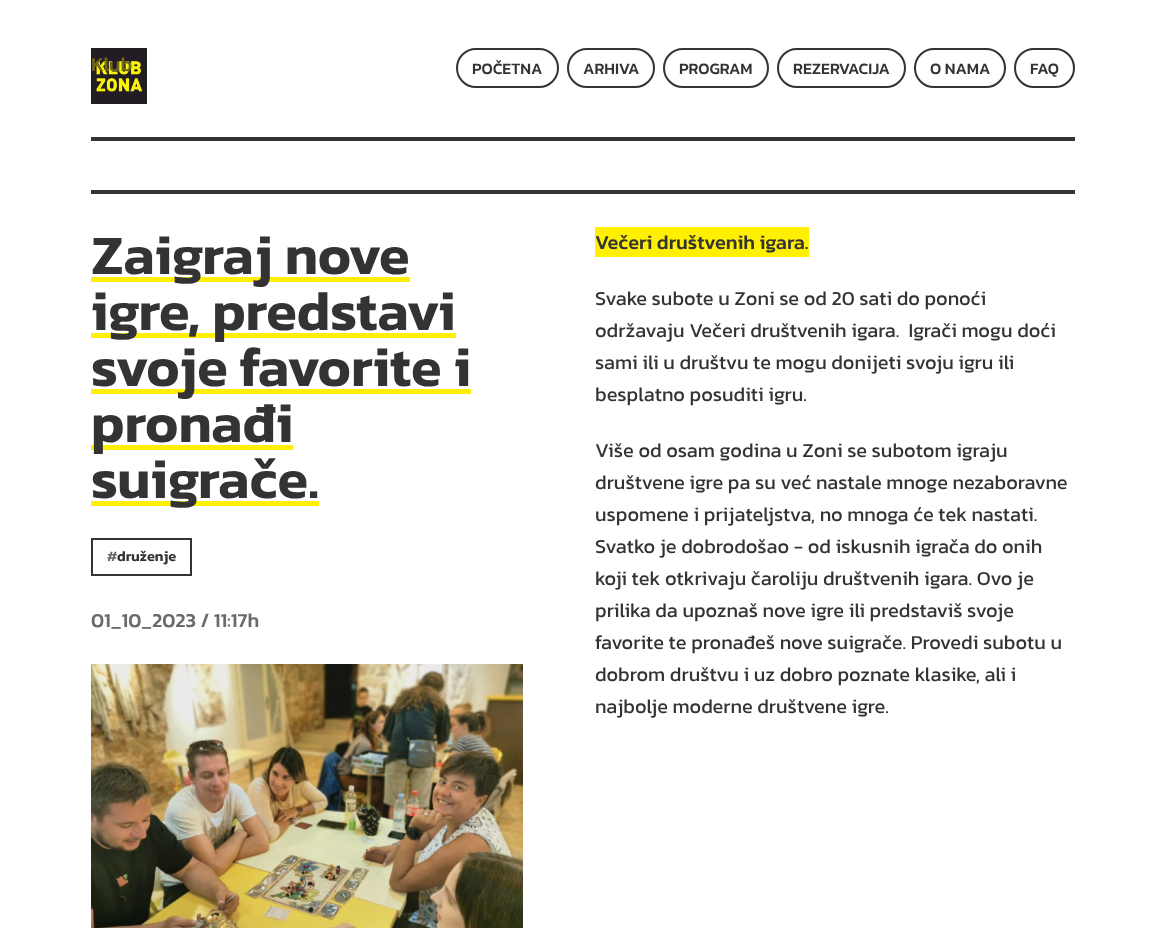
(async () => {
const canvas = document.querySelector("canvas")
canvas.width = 1166
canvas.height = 928
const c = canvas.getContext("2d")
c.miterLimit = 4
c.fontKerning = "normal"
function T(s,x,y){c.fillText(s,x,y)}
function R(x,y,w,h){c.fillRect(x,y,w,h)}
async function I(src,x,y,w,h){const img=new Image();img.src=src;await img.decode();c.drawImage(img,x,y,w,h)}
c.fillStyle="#fff"
R(0,0,1166,928)
c.fillStyle="#333"
R(91,137,984,4)
await I("1.png",91,48,56,56)
c.font="500 20px Kanit"
c.fillStyle="#6e671a"
T("Klub",91,71)
c.beginPath()
c.roundRect(457,49,101,38,19)
c.strokeStyle="#333"
c.lineWidth=2
c.stroke()
c.font="500 16px Kanit"
c.fillStyle="#333"
T("POČETNA",472,74)
c.beginPath()
c.roundRect(568,49,86,38,19)
c.stroke()
T("ARHIVA",583,74)
c.beginPath()
c.roundRect(664,49,104,38,19)
c.stroke()
T("PROGRAM",679,74)
c.beginPath()
c.roundRect(778,49,127,38,19)
c.stroke()
T("REZERVACIJA",793,74)
c.beginPath()
c.roundRect(915,49,90,38,19)
c.stroke()
T("O NAMA",930,74)
c.beginPath()
c.roundRect(1015,49,59,38,19)
c.stroke()
T("FAQ",1030,74)
R(91,190,984,4)
c.fillStyle="#fef000"
R(91,277,319,5)
c.font="600 56px Kanit"
c.fillStyle="#333"
T("Zaigraj nove",91,274)
c.fillStyle="#fef000"
R(91,333,365,5)
c.fillStyle="#333"
T("igre, predstavi",91,330)
c.fillStyle="#fef000"
R(91,389,380,5)
c.fillStyle="#333"
T("svoje favorite i",91,386)
c.fillStyle="#fef000"
R(91,445,202,5)
c.fillStyle="#333"
T("pronađi",91,442)
c.fillStyle="#fef000"
R(91,501,228,5)
c.fillStyle="#333"
T("suigrače.",91,498)
c.strokeRect(92,539,99,36)
c.font="600 14.5px Kanit"
c.fillStyle="#6a6a6a"
T("#",107,561)
c.fillStyle="#333"
T("druženje",117,561)
c.font="500 20px Kanit"
c.fillStyle="#6a6a6a"
T("01_10_2023 / 11:17h",91,627)
await I("2.png",91,664,432,264)
c.fillStyle="#fef000"
R(595,227,214,30)
c.fillStyle="#333"
T("Večeri društvenih igara.",595,249)
c.font="20px Kanit"
T("Svake subote u Zoni se od 20 sati do ponoći",595,305)
T("održavaju Večeri društvenih igara.  Igrači mogu doći",595,337)
T("sami ili u društvu te mogu donijeti svoju igru ili",595,369)
T("besplatno posuditi igru.",595,401)
T("Više od osam godina u Zoni se subotom igraju",595,457)
T("društvene igre pa su već nastale mnoge nezaboravne",595,489)
T("uspomene i prijateljstva, no mnoga će tek nastati.",595,521)
T("Svatko je dobrodošao - od iskusnih igrača do onih",595,553)
T("koji tek otkrivaju čaroliju društvenih igara. Ovo je",595,585)
T("prilika da upoznaš nove igre ili predstaviš svoje",595,617)
T("favorite te pronađeš nove suigrače. Provedi subotu u",595,649)
T("dobrom društvu i uz dobro poznate klasike, ali i",595,681)
T("najbolje moderne društvene igre.",595,713)
})()
